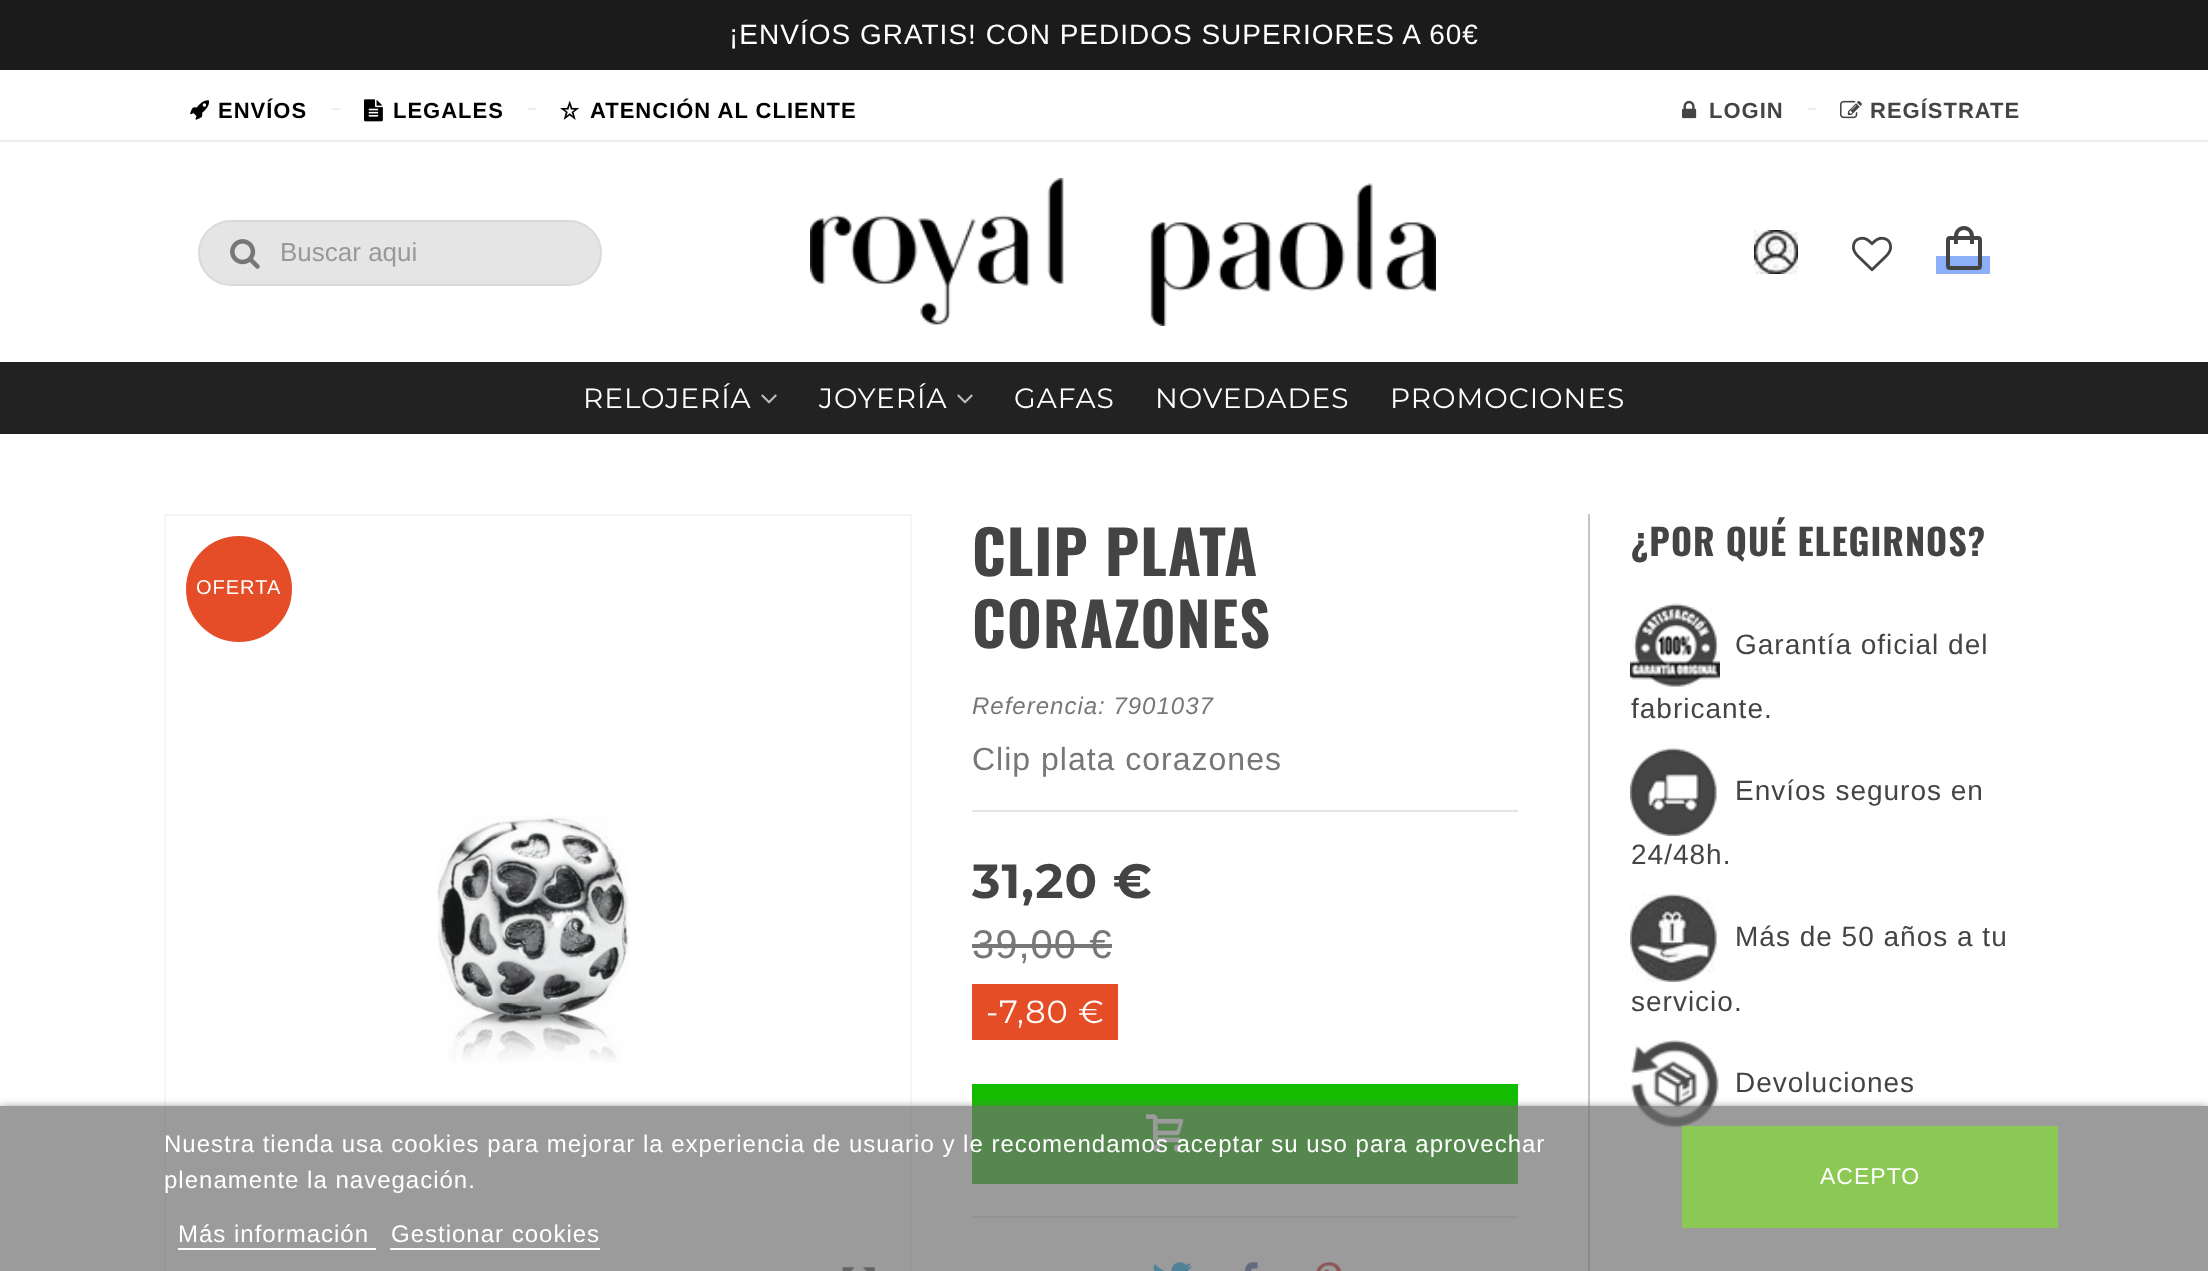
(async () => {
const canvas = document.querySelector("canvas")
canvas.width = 2208
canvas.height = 1271
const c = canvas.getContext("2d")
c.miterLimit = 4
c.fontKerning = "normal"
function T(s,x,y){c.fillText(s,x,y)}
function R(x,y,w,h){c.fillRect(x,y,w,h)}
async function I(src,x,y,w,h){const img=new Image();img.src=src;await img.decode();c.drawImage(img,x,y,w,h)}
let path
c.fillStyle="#fff"
R(0,0,2208,1271)
c.fillStyle="#1b1b1b"
R(0,0,2208,70)
c.letterSpacing="1px"
c.font="28px Liberation Sans"
c.fillStyle="#fff"
T("¡ENVÍOS GRATIS! CON PEDIDOS SUPERIORES A 60€",729,44)
c.fillStyle="#ededed"
R(0,140,2208,2)
await I("1.png",190,100,19,20)
c.font="bold 22px Liberation Sans"
c.fillStyle="#000"
T("ENVÍOS",218,118)
c.fillStyle="#ededed"
R(332,108,8,2)
await I("2.png",364,99,19,23)
c.fillStyle="#000"
T("LEGALES",393,118)
c.fillStyle="#ededed"
R(528,108,8,2)
await I("3.png",560,100,20,20)
c.fillStyle="#000"
T("ATENCIÓN AL CLIENTE",590,118)
await I("4.png",1682,100,15,19)
c.fillStyle="#444"
T("LOGIN",1709,118)
c.fillStyle="#ededed"
R(1808,108,8,2)
await I("5.png",1840,100,22,19)
c.fillStyle="#444"
T("REGÍSTRATE",1870,118)
c.fillStyle="#e5e5e5"
c.beginPath()
c.roundRect(199,221,402,64,32)
c.fill()
c.strokeStyle="#dadada"
c.lineWidth=2
c.stroke()
await I("6.png",230,239,30,30)
c.letterSpacing="0px"
c.font="26px Liberation Sans"
c.fillStyle="#999"
T("Buscar aqui",280,261)
await I("7.png",810,178,626,148)
await I("8.png",1754,230,44,44)
await I("9.png",1852,236,40,36)
c.fillStyle="#8cb0f7"
R(1936,256,54,18)
c.beginPath()
c.roundRect(1948,238,32,30,2)
c.strokeStyle="#444"
c.lineWidth=4
c.stroke()
c.fillStyle="#444"
path = new Path2D("M1964 226c5.5 0 10 4.5 10 10v8h-20v-8c0-5.5 4.5-10 10-10zm0 4c7.5 0 6 9 6 14h-12c0-5-1.5-14 6-14z")
c.fill(path,"evenodd")
c.strokeStyle="#f5f5f5"
c.lineWidth=2
c.strokeRect(165,515,746,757)
await I("12.png",842,1267,33,4)
c.fillStyle="#e5e5e5"
R(972,1216,546,2)
c.fillStyle="#14bc00"
R(972,1084,546,100)
await I("13.png",1146,1114,38,38)
await I("14.png",1153,1262,39,9)
await I("15.png",1245,1262,13,9)
await I("16.png",1316,1262,25,9)
c.fillStyle="#c5c5c5"
R(1588,514,2,757)
await I("20.png",1631,1040,88,88)
c.save()
c.beginPath()
c.rect(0,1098,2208,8)
c.clip()
c.fillStyle="#707070"
c.filter="blur(5px)"
c.beginPath()
c.rect(0,1108,2208,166)
c.fill()
c.filter="none"
c.restore()
c.fillStyle="#707070b3"
R(0,1106,2208,165)
c.letterSpacing="1px"
c.font="24px Liberation Sans"
c.fillStyle="#fff"
T("Nuestra tienda usa cookies para mejorar la experiencia de usuario y le recomendamos aceptar su uso para aprovechar",164,1152)
T("plenamente la navegación.",164,1188)
T("Más información",178,1242)
R(178,1248,198,2)
T("Gestionar cookies",391,1242)
R(390,1248,210,2)
c.fillStyle="#8bc954"
R(1682,1126,376,102)
c.font="23px Liberation Sans"
c.fillStyle="#fff"
T("ACEPTO",1820,1184)
c.fillStyle="#222"
R(0,362,2208,72)
c.font="100 28px 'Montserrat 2'"
c.fillStyle="#fff"
T("RELOJERÍA",583,408)
await I("10.png",761,394,16,10)
T("JOYERÍA",819,408)
await I("10.png",957,394,16,10)
T("GAFAS",1014,408)
T("NOVEDADES",1155,408)
T("PROMOCIONES",1390,408)
c.fillStyle="#e54d28"
c.beginPath()
c.arc(239,589,51,0,7)
c.fill()
c.strokeStyle="#e54d28"
c.lineWidth=4
c.stroke()
c.font="20px Liberation Sans"
c.fillStyle="#fff"
T("OFERTA",196,594)
await I("11.png",437,815,193,248)
c.font="bold 60px Oswald"
c.fillStyle="#444"
T("CLIP PLATA",972,576)
T("CORAZONES",972,648)
c.font="italic 24px Liberation Sans"
c.fillStyle="#777"
T("Referencia: 7901037",972,714)
c.font="32px Liberation Sans"
T("Clip plata corazones",972,770)
c.fillStyle="#e5e5e5"
R(972,810,546,2)
c.font="100 48px Montserrat"
c.fillStyle="#444"
T("31,20 €",972,898)
c.font="40px Liberation Sans"
c.fillStyle="#777"
T("39,00 €",972,958)
R(972,944,140,4)
c.fillStyle="#e54d26"
R(972,984,146,56)
c.font="100 32px 'Montserrat 2'"
c.fillStyle="#fff"
T("-7,80 €",986,1023)
c.font="bold 36px Oswald"
c.fillStyle="#444"
T("¿POR QUÉ ELEGIRNOS?",1631,556)
await I("17.png",1630,603,90,84)
c.font="28px Liberation Sans"
T("Garantía oficial del",1735,654)
T("fabricante.",1631,718)
await I("18.png",1630,748,87,88)
T("Envíos seguros en",1735,800)
T("24/48h.",1631,864)
await I("19.png",1630,894,88,88)
T("Más de 50 años a tu",1735,946)
T("servicio.",1631,1011)
T("Devoluciones",1735,1092)
})()
